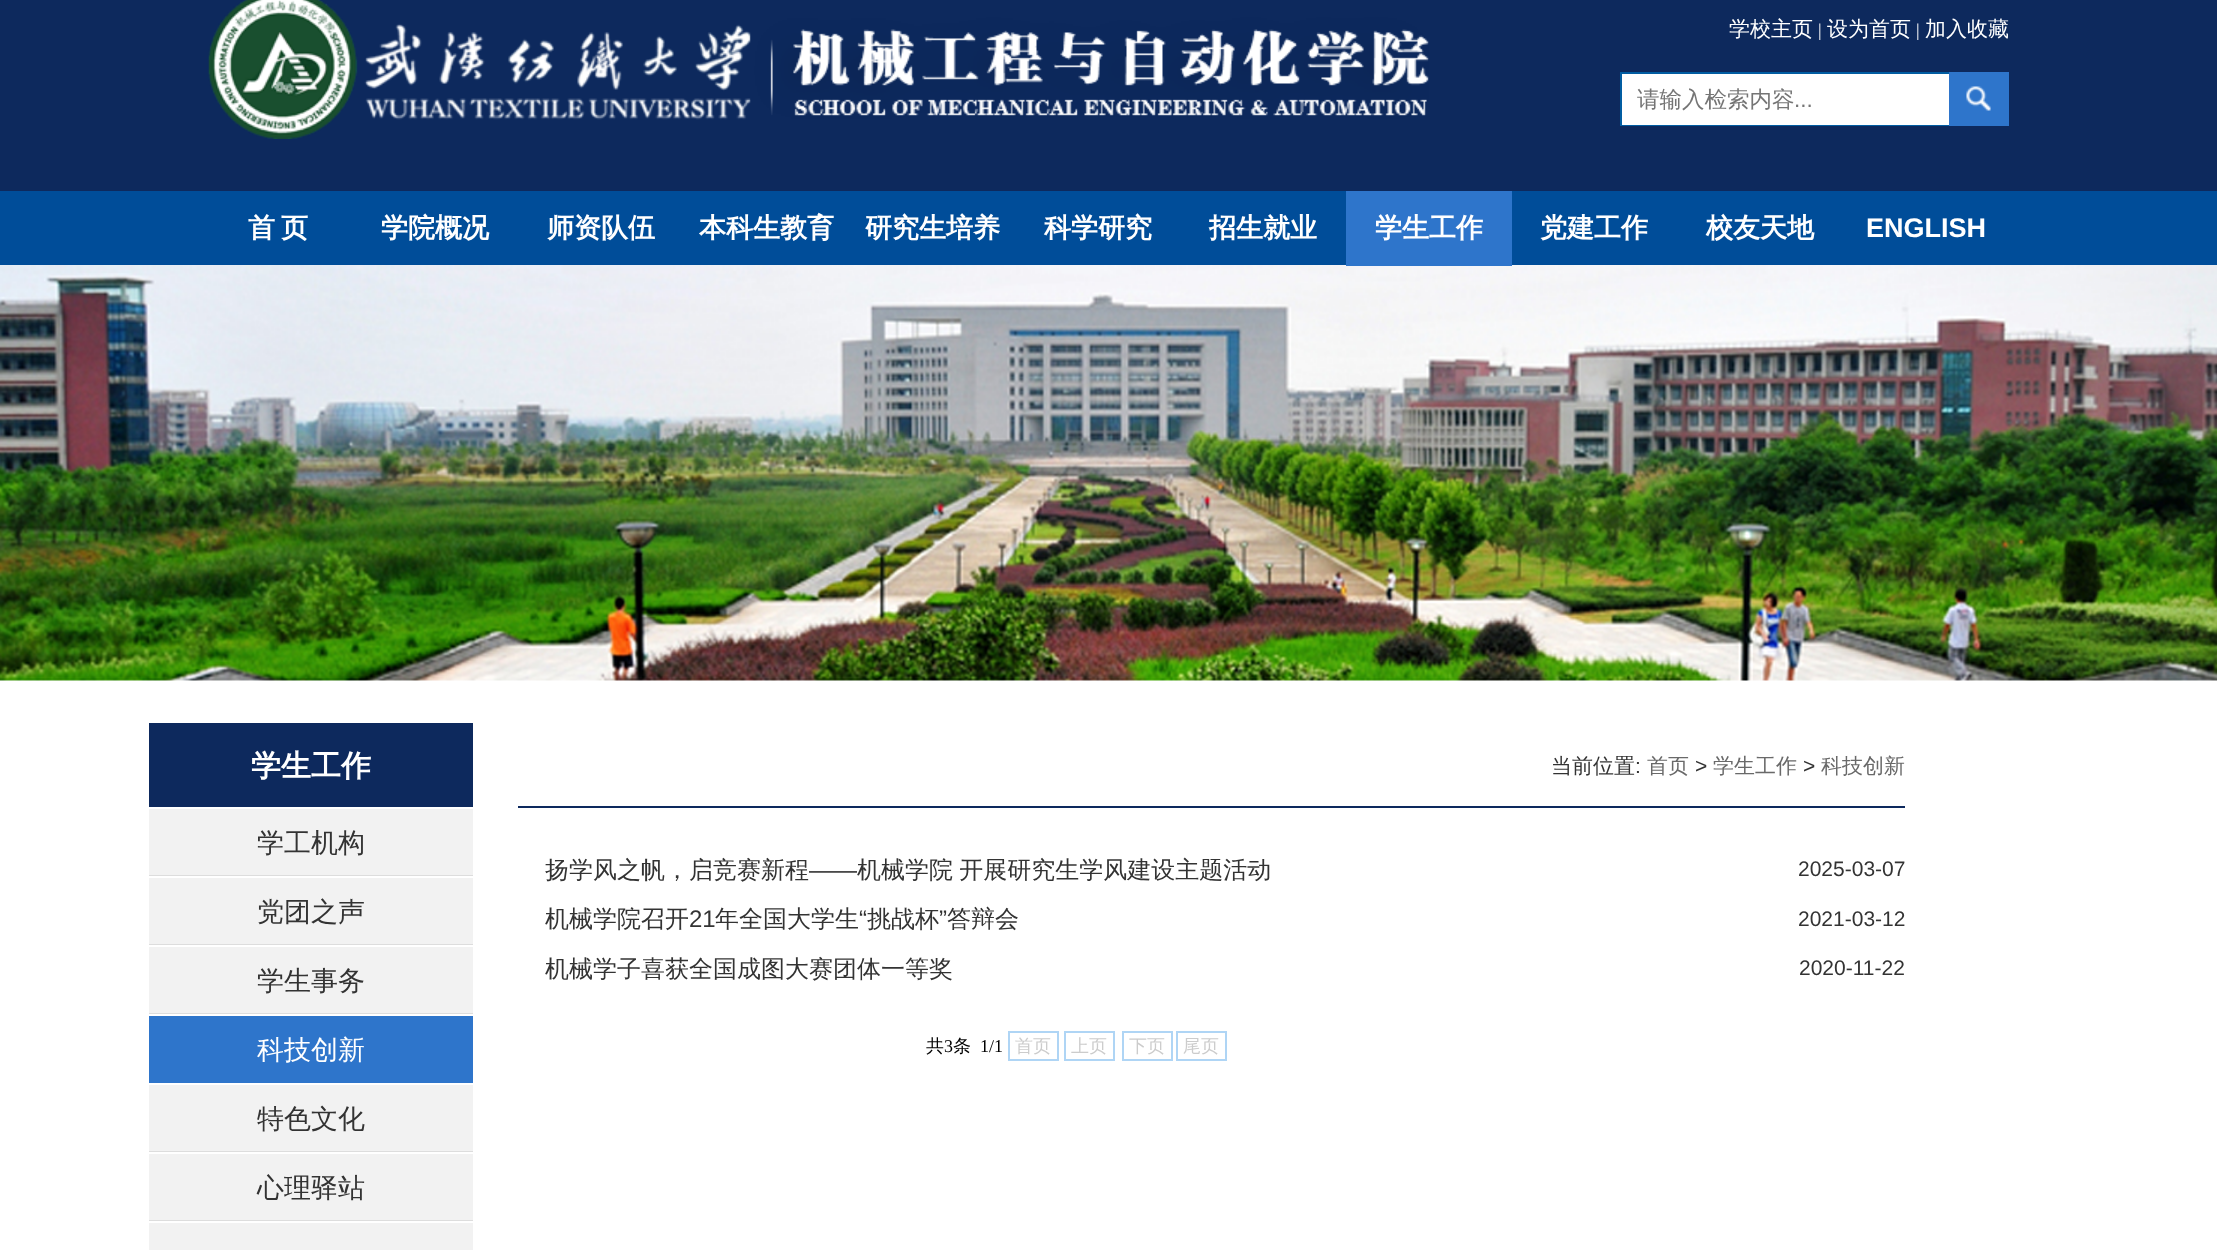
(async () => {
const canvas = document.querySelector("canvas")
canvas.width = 2217
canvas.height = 1250
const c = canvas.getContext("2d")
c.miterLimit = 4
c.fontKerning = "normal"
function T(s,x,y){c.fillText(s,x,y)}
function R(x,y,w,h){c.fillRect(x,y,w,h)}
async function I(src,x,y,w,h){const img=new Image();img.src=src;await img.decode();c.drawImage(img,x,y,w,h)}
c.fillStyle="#fff"
R(0,0,2217,1250)
c.fillStyle="#0d295d"
R(0,0,2217,191)
await I("1.png",208,0,1221,139)
c.font="500 21px WenQuanYi Zen Hei"
c.fillStyle="#fff"
T("学校主页",1729,36)
c.font="18px Liberation Serif"
T("|",1818,36)
c.font="500 21px WenQuanYi Zen Hei"
T("设为首页",1827,36)
c.font="18px Liberation Serif"
T("|",1916,36)
c.font="500 21px WenQuanYi Zen Hei"
T("加入收藏",1925,36)
R(1622,74,327,51)
c.fillStyle="#015da2"
R(1620,72,329,2)
R(1620,125,329,1)
R(1620,72,2,54)
c.font="500 22.5px WenQuanYi Zen Hei"
c.fillStyle="#757575"
T("请输入检索内容",1637,107)
c.font="22.5px Liberation Sans"
T("...",1794,107)
c.fillStyle="#2e75cb"
R(1949,72,60,54)
await I("2.png",1966,86,25,25)
c.fillStyle="#004d99"
R(0,191,2217,74)
c.letterSpacing="6px"
c.font="bold 27px WenQuanYi Zen Hei"
c.fillStyle="#fff"
T("首页",248,237)
c.letterSpacing="0px"
T("学院概况",381,237)
T("师资队伍",547,237)
T("本科生教育",699,237)
T("研究生培养",865,237)
T("科学研究",1044,237)
T("招生就业",1209,237)
await I("3.png",0,265,2217,416)
c.fillStyle="#2e75cb"
R(1346,191,166,75)
c.fillStyle="#fff"
T("学生工作",1375,237)
T("党建工作",1540,237)
T("校友天地",1706,237)
c.font="bold 27px Liberation Sans"
T("ENGLISH",1866,237)
c.fillStyle="#0d295d"
R(149,723,324,84)
c.font="bold 30px WenQuanYi Zen Hei"
c.fillStyle="#fff"
T("学生工作",251,776)
c.fillStyle="#f2f2f2"
R(149,809,324,66)
c.fillStyle="#ddd"
R(149,875,324,1)
c.font="500 27px WenQuanYi Zen Hei"
c.fillStyle="#333"
T("学工机构",257,852)
c.fillStyle="#f2f2f2"
R(149,878,324,66)
c.fillStyle="#ddd"
R(149,944,324,1)
c.fillStyle="#333"
T("党团之声",257,921)
c.fillStyle="#f2f2f2"
R(149,947,324,66)
c.fillStyle="#ddd"
R(149,1013,324,1)
c.fillStyle="#333"
T("学生事务",257,990)
c.fillStyle="#2e75cb"
R(149,1016,324,67)
c.fillStyle="#fff"
T("科技创新",257,1059)
c.fillStyle="#f2f2f2"
R(149,1085,324,66)
c.fillStyle="#ddd"
R(149,1151,324,1)
c.fillStyle="#333"
T("特色文化",257,1128)
c.fillStyle="#f2f2f2"
R(149,1154,324,66)
c.fillStyle="#ddd"
R(149,1220,324,1)
c.fillStyle="#333"
T("心理驿站",257,1197)
c.fillStyle="#f2f2f2"
R(149,1223,324,27)
c.fillStyle="#0d295d"
R(518,806,1387,2)
c.font="500 21px WenQuanYi Zen Hei"
c.fillStyle="#333"
T("当前位置",1551,773)
c.font="21px Liberation Sans"
T(":",1635,773)
c.font="500 21px WenQuanYi Zen Hei"
c.fillStyle="#696969"
T("首页",1647,773)
c.font="21px Liberation Sans"
c.fillStyle="#333"
T(">",1695,773)
c.font="500 21px WenQuanYi Zen Hei"
c.fillStyle="#696969"
T("学生工作",1713,773)
c.font="21px Liberation Sans"
c.fillStyle="#333"
T(">",1803,773)
c.font="500 21px WenQuanYi Zen Hei"
c.fillStyle="#696969"
T("科技创新",1821,773)
c.font="500 24px WenQuanYi Zen Hei"
c.fillStyle="#333"
T("扬学风之帆，启竞赛新程",545,878)
c.font="24px Liberation Sans"
T("——",809,878)
c.wordSpacing="-1px"
c.font="500 24px WenQuanYi Zen Hei"
T("机械学院 开展研究生学风建设主题活动",857,878)
c.wordSpacing="0px"
c.font="21px Liberation Sans"
T("2025-03-07",1798,876)
c.font="500 24px WenQuanYi Zen Hei"
T("机械学院召开",545,927)
c.font="24px Liberation Sans"
T("21",689,927)
c.font="500 24px WenQuanYi Zen Hei"
T("年全国大学生",715,927)
c.font="24px Liberation Sans"
T("“",859,927)
c.font="500 24px WenQuanYi Zen Hei"
T("挑战杯",867,927)
c.font="24px Liberation Sans"
T("”",939,927)
c.font="500 24px WenQuanYi Zen Hei"
T("答辩会",947,927)
c.font="21px Liberation Sans"
T("2021-03-12",1798,926)
c.font="500 24px WenQuanYi Zen Hei"
T("机械学子喜获全国成图大赛团体一等奖",545,977)
c.font="21px Liberation Sans"
T("2020-11-22",1799,975)
c.font="500 18px WenQuanYi Zen Hei"
c.fillStyle="#000"
T("共",926,1052)
c.font="18px Liberation Serif"
T("3",944,1052)
c.font="500 18px WenQuanYi Zen Hei"
T("条",953,1052)
c.font="18px Liberation Serif"
T("1/1",980,1052)
c.strokeStyle="#afd5f5"
c.lineWidth=2
c.strokeRect(1009,1032,49,28)
c.font="500 18px WenQuanYi Zen Hei"
c.fillStyle="#ccc"
T("首页",1015,1052)
c.strokeRect(1065,1032,49,28)
T("上页",1071,1052)
c.strokeRect(1123,1032,49,28)
T("下页",1129,1052)
c.strokeRect(1177,1032,49,28)
T("尾页",1183,1052)
})()
